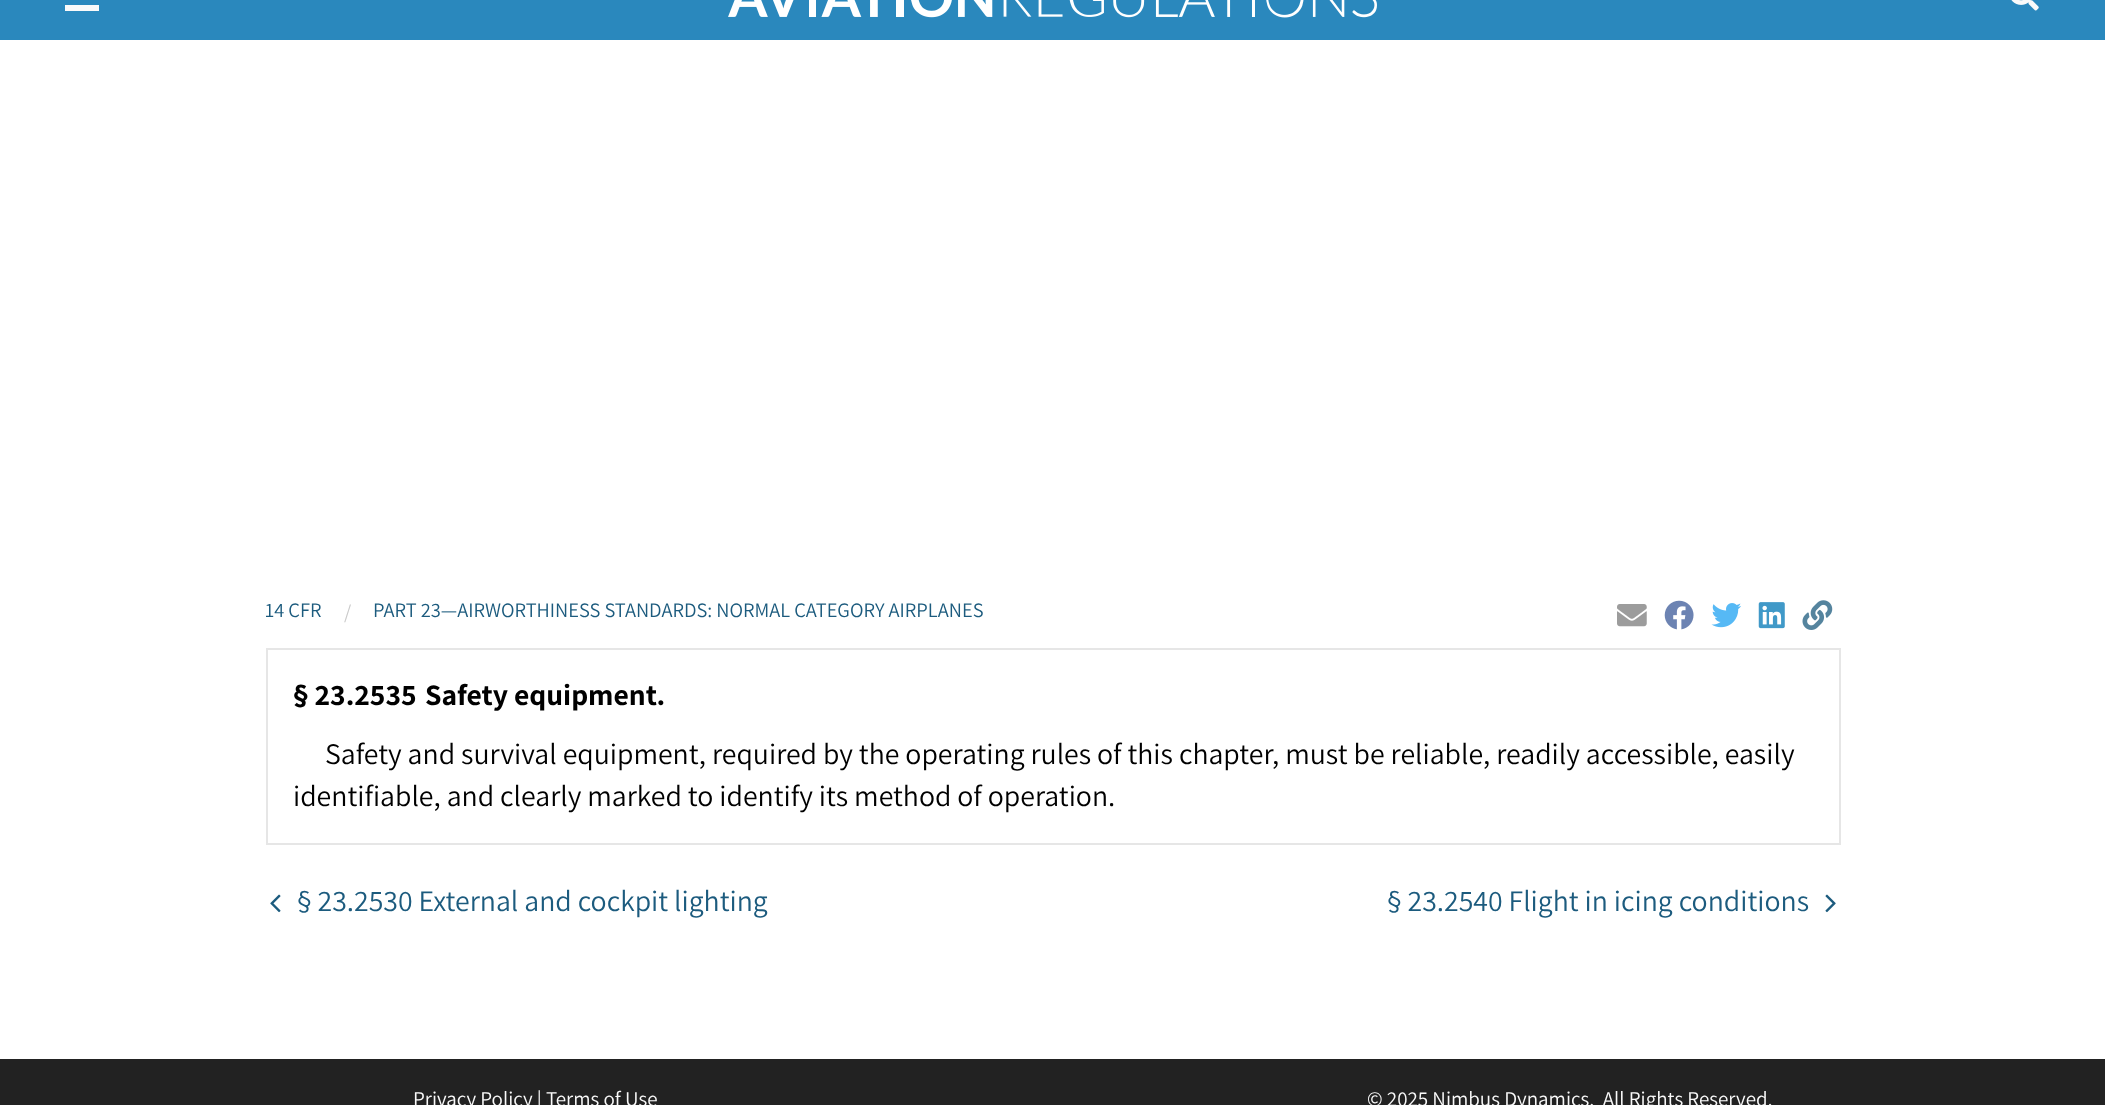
(async () => {
const canvas = document.querySelector("canvas")
canvas.width = 2105
canvas.height = 1105
const c = canvas.getContext("2d")
c.miterLimit = 4
c.fontKerning = "normal"
function T(s,x,y){c.fillText(s,x,y)}
function R(x,y,w,h){c.fillRect(x,y,w,h)}
async function I(src,x,y,w,h){const img=new Image();img.src=src;await img.decode();c.drawImage(img,x,y,w,h)}
c.fillStyle="#fff"
R(0,0,2105,1105)
c.fillStyle="#2a88bd"
R(0,0,2105,40)
c.fillStyle="#fafafa"
R(65,5,34,6)
await I("1.png",728,0,649,18)
await I("2.png",2011,0,28,11)
c.font="20.45px Assistant"
c.fillStyle="#1c5b7e"
T("14 CFR",265,617)
c.fillStyle="#cacaca"
T("/",344,619)
c.fillStyle="#1c5b7e"
T("PART 23—AIRWORTHINESS STANDARDS: NORMAL CATEGORY AIRPLANES",373,617)
await I("3.png",1617,604,30,23)
await I("4.png",1664,600,30,30)
await I("5.png",1711,603,30,25)
await I("6.png",1758,602,27,27)
await I("7.png",1802,600,31,30)
c.strokeStyle="#e6e6e6"
c.lineWidth=2
c.strokeRect(267,649,1573,195)
c.font="bold 29.75px Assistant"
c.fillStyle="#000"
T("§ 23.2535",293,705)
T("Safety equipment.",425,705)
c.font="29.75px Assistant"
T("Safety and survival equipment, required by the operating rules of this chapter, must be reliable, readily accessible, easily",325,764)
T("identifiable, and clearly marked to identify its method of operation.",293,806)
await I("8.png",270,894,11,19)
c.fillStyle="#1c5b7e"
T("§ 23.2530 External and cockpit lighting",297,911)
T("§ 23.2540 Flight in icing conditions",1387,911)
await I("9.png",1825,894,11,19)
c.fillStyle="#222"
R(0,1059,2105,46)
c.font="21px Assistant"
c.fillStyle="#fafafa"
T("Privacy Policy | Terms of Use",413,1106)
T("© 2025 Nimbus Dynamics.  All Rights Reserved.",1367,1106)
})()
